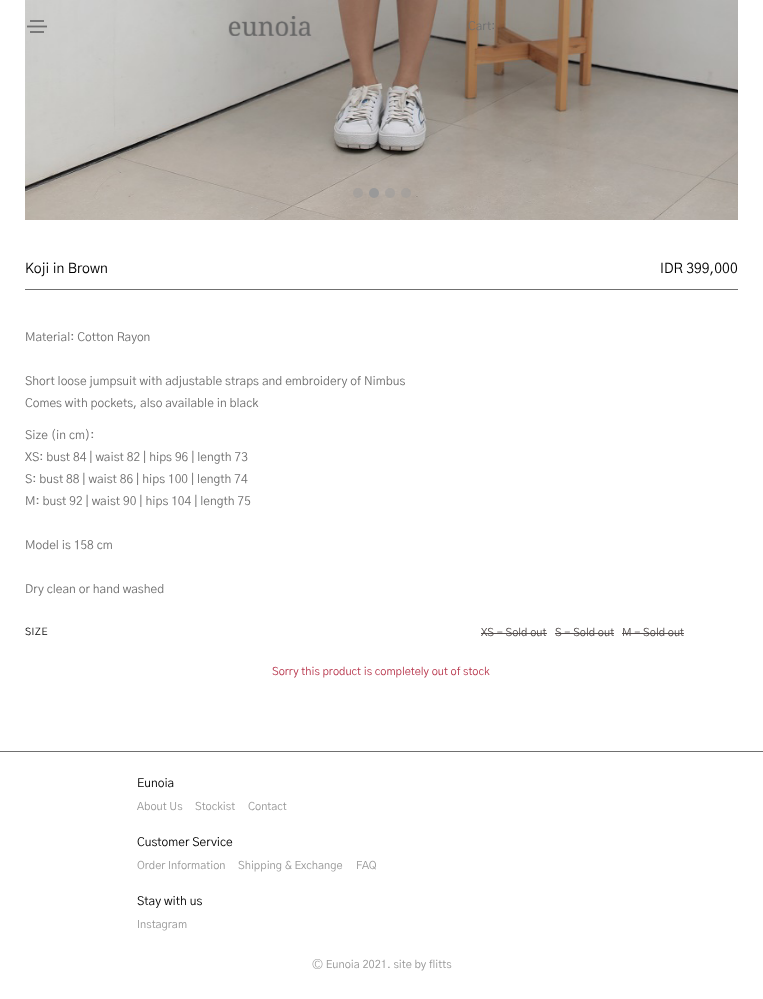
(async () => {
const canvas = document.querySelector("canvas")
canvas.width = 763
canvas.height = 999
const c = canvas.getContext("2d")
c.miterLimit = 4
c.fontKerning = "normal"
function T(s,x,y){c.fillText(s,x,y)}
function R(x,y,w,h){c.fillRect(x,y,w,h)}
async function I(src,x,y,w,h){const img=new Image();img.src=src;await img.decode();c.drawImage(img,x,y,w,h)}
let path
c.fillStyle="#fff"
R(0,0,763,999)
await I("2.png",25,0,713,220)
c.fillStyle="#707070e6"
R(30,20,14,2)
path = new Path2D("M27 26.5h20")
c.strokeStyle="#707070"
c.lineWidth=1.8
c.stroke(path)
c.fillStyle="#797979"
R(30,31,14,2)
await I("1.png",228,16,84,20)
c.font="12px 'Gothic A1'"
c.fillStyle="#707070"
T("Cart:",468,30)
c.fillStyle="#99999980"
c.beginPath()
c.arc(358,193,5,0,7)
c.fill()
c.fillStyle="#999"
c.beginPath()
c.arc(374,193,5,0,7)
c.fill()
c.fillStyle="#99999980"
c.beginPath()
c.arc(390,193,5,0,7)
c.fill()
c.beginPath()
c.arc(406,193,5,0,7)
c.fill()
c.font="14px 'Gothic A1'"
c.fillStyle="#000"
T("Koji in Brown",25,273)
T("IDR 399,000",660,273)
c.fillStyle="#707070"
R(25,289,713,1)
c.font="12px 'Gothic A1'"
T("Material: Cotton Rayon",25,341)
T("Short loose jumpsuit with adjustable straps and embroidery of Nimbus",25,385)
T("Comes with pockets, also available in black",25,407)
T("Size (in cm):",25,439)
T("XS: bust 84 | waist 82 | hips 96 | length 73",25,461)
T("S: bust 88 | waist 86 | hips 100 | length 74",25,483)
T("M: bust 92 | waist 90 | hips 104 | length 75",25,505)
T("Model is 158 cm",25,549)
T("Dry clean or hand washed",25,593)
c.letterSpacing="0.5px"
c.font="10px 'Gothic A1'"
c.fillStyle="#000"
T("SIZE",25,635)
c.letterSpacing="0px"
c.font="11px 'Gothic A1'"
c.fillStyle="#534d4c"
T("XS - Sold out",481,636)
R(481,633,66,1)
T("S - Sold out",555,636)
R(555,633,59,1)
T("M - Sold out",622,636)
R(622,633,62,1)
c.fillStyle="#b9394f"
T("Sorry this product is completely out of stock",272,675)
c.fillStyle="#707070"
R(0,751,763,1)
c.font="12px 'Gothic A1'"
c.fillStyle="#000"
T("Eunoia",137,787)
c.font="11px 'Gothic A1'"
c.fillStyle="#999"
T("About Us",137,810)
T("Stockist",195,810)
T("Contact",248,810)
c.font="12px 'Gothic A1'"
c.fillStyle="#000"
T("Customer Service",137,846)
c.font="11px 'Gothic A1'"
c.fillStyle="#999"
T("Order Information",137,869)
T("Shipping & Exchange",238,869)
T("FAQ",356,869)
c.font="12px 'Gothic A1'"
c.fillStyle="#000"
T("Stay with us",137,905)
c.font="11px 'Gothic A1'"
c.fillStyle="#999"
T("Instagram",137,928)
T("Ⓒ Eunoia 2021. site by flitts",312,968)
})()
